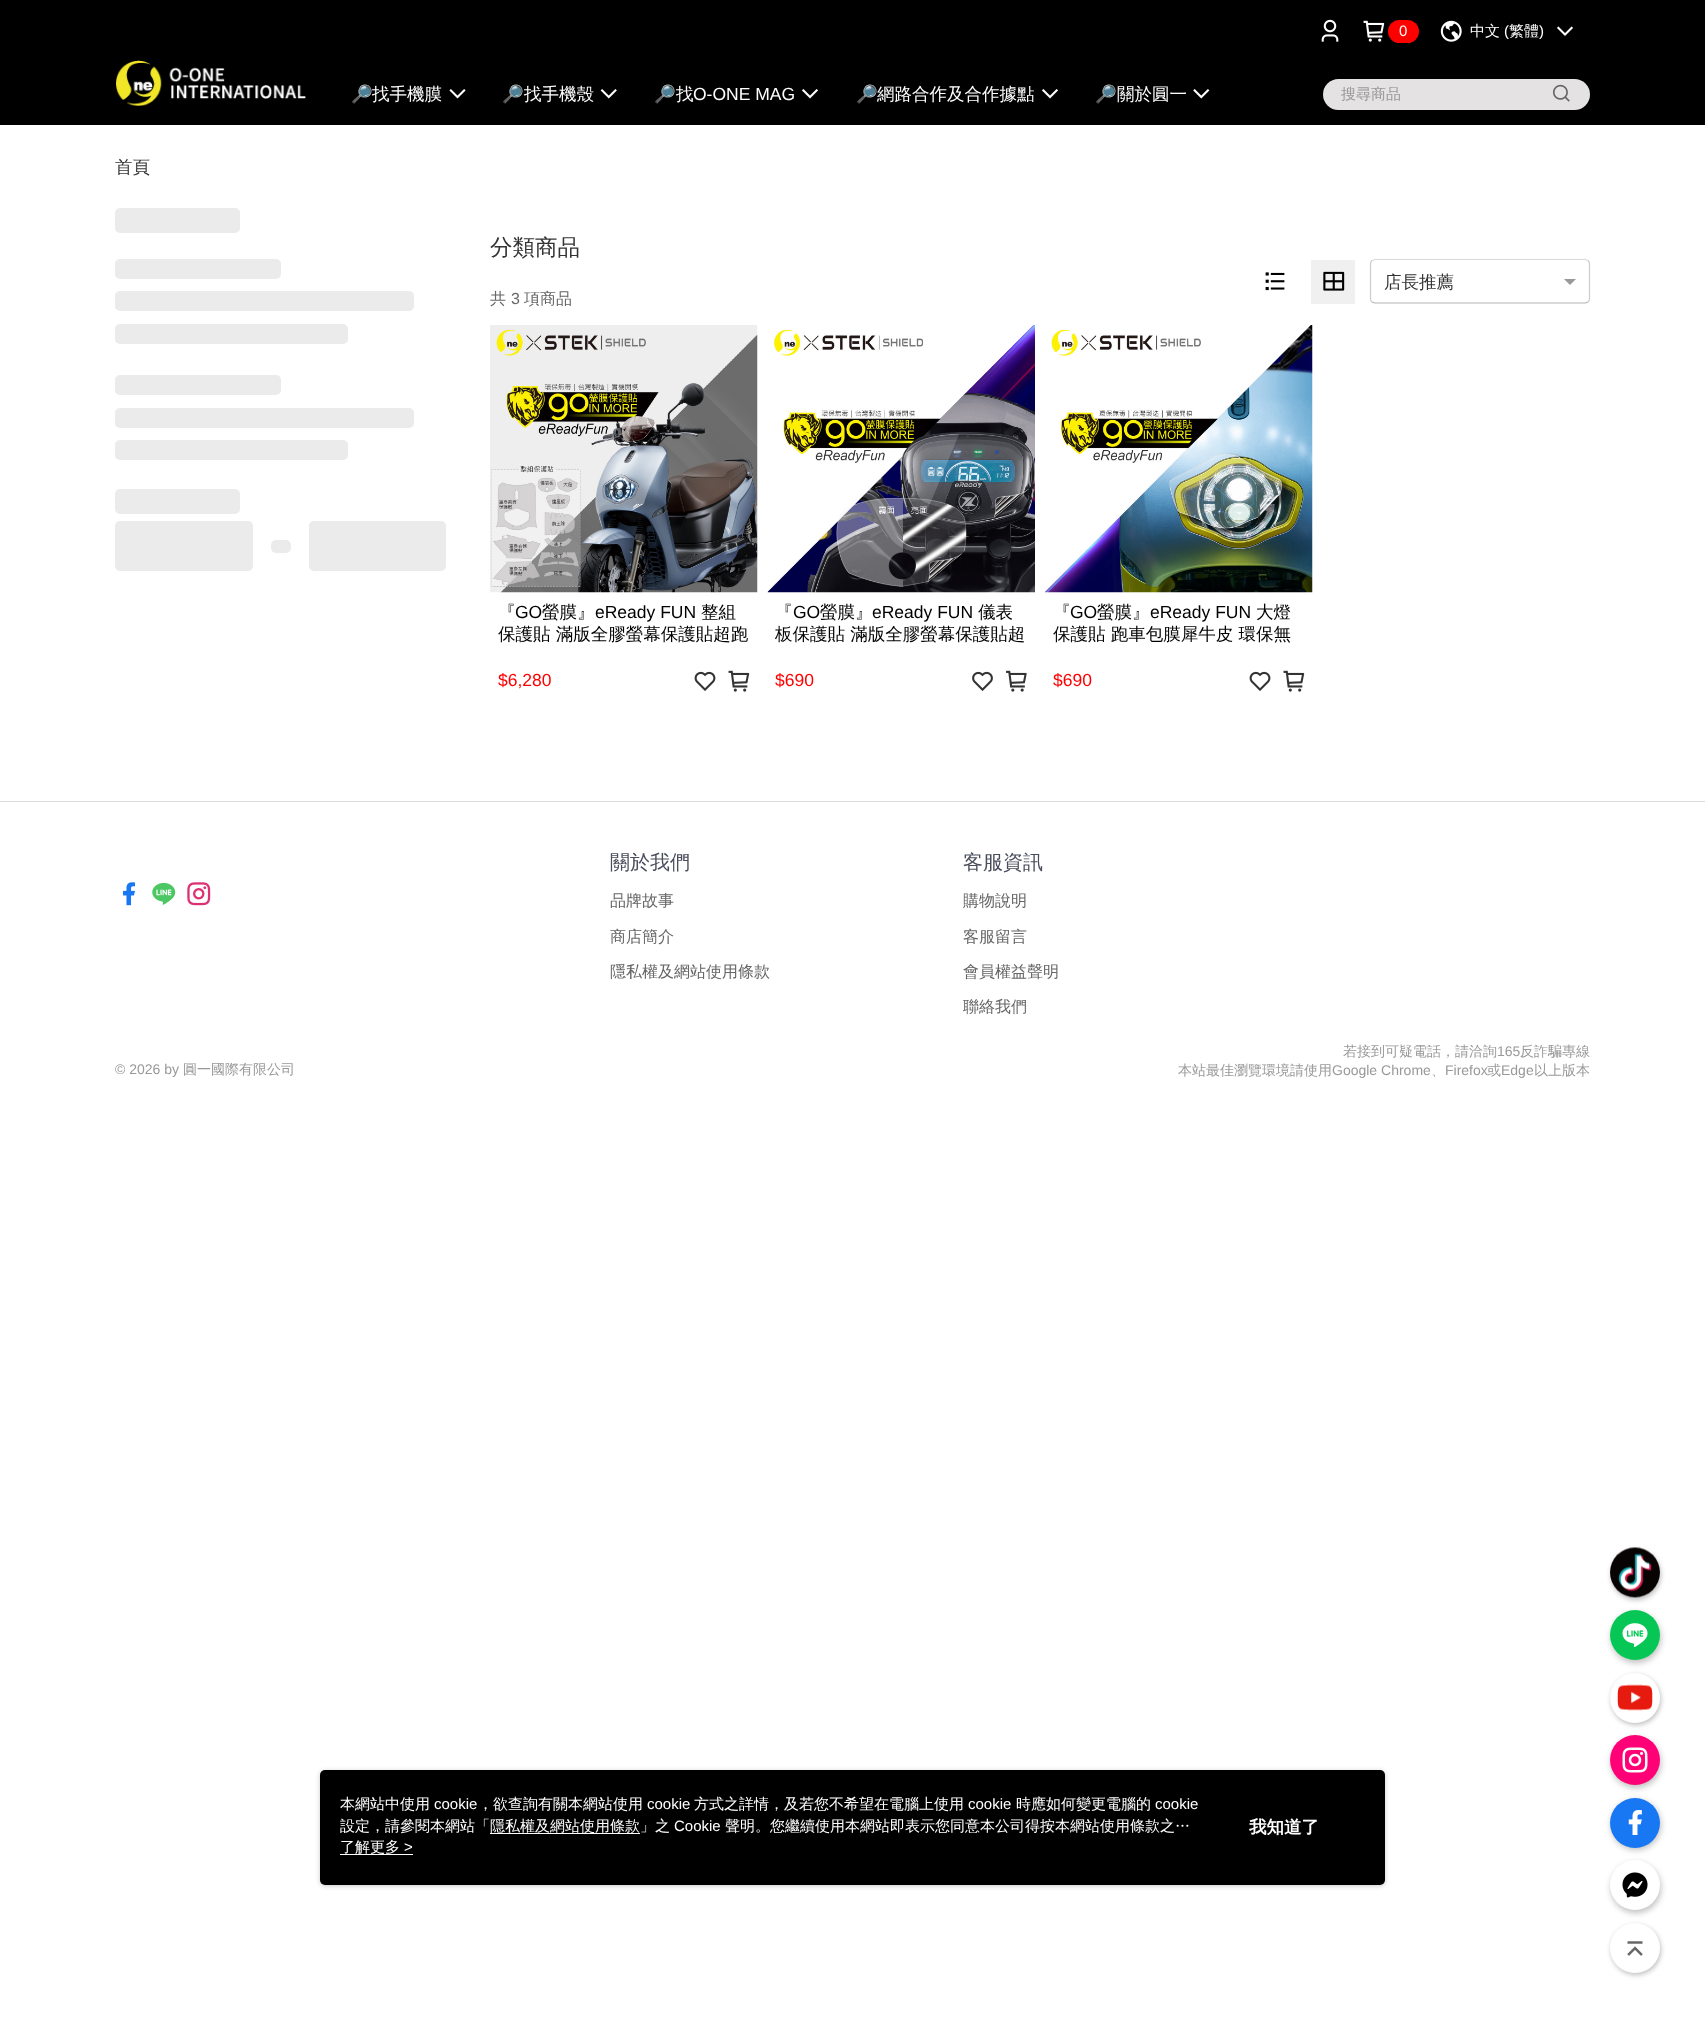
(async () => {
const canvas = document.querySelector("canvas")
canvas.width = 1705
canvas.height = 2030
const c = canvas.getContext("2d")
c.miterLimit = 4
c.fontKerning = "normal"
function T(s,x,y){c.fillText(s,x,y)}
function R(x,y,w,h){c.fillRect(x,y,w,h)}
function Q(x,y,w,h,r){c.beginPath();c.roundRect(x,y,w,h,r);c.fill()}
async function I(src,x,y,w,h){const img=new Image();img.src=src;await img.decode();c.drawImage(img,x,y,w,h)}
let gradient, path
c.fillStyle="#fff"
R(0,0,1705,2030)
c.fillStyle="#000001"
R(0,0,1705,125)
await I("1.png",116,60,190,46)
await I("2.png",1321,19,18,23)
await I("3.png",1363,20,22,22)
c.fillStyle="#f00"
Q(1388,20,31,23,11.5)
c.font="15px Liberation Sans"
c.fillStyle="#fff"
T("0",1399,36)
await I("4.png",1440,20,22,22)
c.font="500 15px WenQuanYi Zen Hei"
T("中文",1470,36)
c.font="15px Liberation Sans"
T("(",1504,36)
c.font="500 15px WenQuanYi Zen Hei"
T("繁體",1509,36)
c.font="15px Liberation Sans"
T(")",1539,36)
await I("5.png",1557,26,16,10)
c.font="17.5px Noto Color Emoji"
T("🔎",351,100)
c.font="500 17.5px WenQuanYi Zen Hei"
T("找手機膜",372,100)
await I("6.png",449,89,17,10)
c.save()
c.beginPath()
c.rect(503,75,91,38)
c.clip()
c.font="17.5px Noto Color Emoji"
T("🔎",502,100)
c.restore()
T("找手機殼",524,100)
await I("7.png",600,89,17,10)
c.font="17.5px Noto Color Emoji"
T("🔎",654,100)
c.font="500 17.5px WenQuanYi Zen Hei"
T("找",676,100)
c.font="17.5px Liberation Sans"
T("O-ONE MAG",693,100)
await I("8.png",802,89,16,10)
c.font="17.5px Noto Color Emoji"
T("🔎",856,100)
c.font="500 17.5px WenQuanYi Zen Hei"
T("網路合作及合作據點",877,100)
await I("8.png",1042,89,16,10)
c.save()
c.beginPath()
c.rect(1095,75,91,38)
c.clip()
c.font="17.5px Noto Color Emoji"
T("🔎",1095,100)
c.restore()
T("關於圓一",1117,100)
await I("9.png",1193,89,17,10)
c.fillStyle="#e4e2e2"
Q(1323,79,267,31,15.5)
c.font="500 15px WenQuanYi Zen Hei"
c.fillStyle="#999"
T("搜尋商品",1341,99)
await I("10.png",1552,84,18,18)
c.fillStyle="#00000040"
c.filter="blur(2.5px)"
c.beginPath()
c.roundRect(1611,1550,50,50,25)
c.fill()
c.filter="none"
c.fillStyle="#fff"
c.beginPath()
c.arc(1635,1573,25,0,7)
c.fill()
await I("11.png",1610,1547,50,51)
c.fillStyle="#00000040"
c.filter="blur(3px)"
c.beginPath()
c.roundRect(1611,1613,50,50,25)
c.fill()
c.filter="none"
c.fillStyle="#06c755"
c.beginPath()
c.arc(1635,1635,25,0,7)
c.fill()
await I("12.png",1622,1623,26,24)
c.fillStyle="#00000040"
c.filter="blur(2.5px)"
c.beginPath()
c.roundRect(1611,1675,50,50,25)
c.fill()
c.filter="none"
c.fillStyle="#fff"
c.beginPath()
c.arc(1635,1698,25,0,7)
c.fill()
await I("13.png",1617,1684,36,27)
c.fillStyle="#00000040"
c.filter="blur(3px)"
c.beginPath()
c.roundRect(1611,1738,50,50,25)
c.fill()
c.filter="none"
c.fillStyle="#ff0076"
c.beginPath()
c.arc(1635,1760,25,0,7)
c.fill()
await I("14.png",1622,1747,26,26)
c.fillStyle="#00000040"
c.filter="blur(3px)"
c.beginPath()
c.roundRect(1611,1800,50,50,25)
c.fill()
c.filter="none"
c.fillStyle="#1877f2"
c.beginPath()
c.arc(1635,1823,25,0,7)
c.fill()
await I("15.png",1628,1810,14,25)
c.fillStyle="#00000040"
c.filter="blur(3px)"
c.beginPath()
c.roundRect(1611,1863,50,50,25)
c.fill()
c.filter="none"
c.fillStyle="#fff"
c.beginPath()
c.arc(1635,1885,25,0,7)
c.fill()
await I("16.png",1622,1872,26,26)
c.fillStyle="#00000040"
c.filter="blur(2.5px)"
c.beginPath()
c.roundRect(1611,1925,50,50,25)
c.fill()
c.filter="none"
c.fillStyle="#fff"
c.beginPath()
c.arc(1635,1948,25,0,7)
c.fill()
await I("17.png",1627,1941,16,15)
c.font="500 17.5px WenQuanYi Zen Hei"
c.fillStyle="#333"
T("首頁",115,173)
c.fillStyle="#ebebeb"
Q(115,208,125,25,5)
Q(115,259,166,20,5)
c.save()
c.beginPath()
c.roundRect(115,259,166,20,5)
c.clip()
gradient = c.createLinearGradient(-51,269,116,269)
gradient.addColorStop(0,"#ebebeb")
gradient.addColorStop(.5,"#f5f5f5")
gradient.addColorStop(1,"#ebebeb")
c.fillStyle = gradient
R(115,259,1,20)
c.restore()
Q(115,291,299,20,5)
c.save()
c.beginPath()
c.roundRect(115,291,299,20,5)
c.clip()
gradient = c.createLinearGradient(-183,301,116,301)
gradient.addColorStop(0,"#ebebeb")
gradient.addColorStop(.5,"#f5f5f5")
gradient.addColorStop(1,"#ebebeb")
c.fillStyle = gradient
R(115,291,1,20)
c.restore()
Q(115,324,233,20,5)
c.save()
c.beginPath()
c.roundRect(115,324,233,20,5)
c.clip()
gradient = c.createLinearGradient(-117,334,116,334)
gradient.addColorStop(0,"#ebebeb")
gradient.addColorStop(.5,"#f5f5f5")
gradient.addColorStop(1,"#ebebeb")
c.fillStyle = gradient
R(115,324,1,20)
c.restore()
Q(115,375,166,20,5)
c.save()
c.beginPath()
c.roundRect(115,375,166,20,5)
c.clip()
gradient = c.createLinearGradient(-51,385,116,385)
gradient.addColorStop(0,"#ebebeb")
gradient.addColorStop(.5,"#f5f5f5")
gradient.addColorStop(1,"#ebebeb")
c.fillStyle = gradient
R(115,375,1,20)
c.restore()
Q(115,408,299,20,5)
c.save()
c.beginPath()
c.roundRect(115,408,299,20,5)
c.clip()
gradient = c.createLinearGradient(-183,418,116,418)
gradient.addColorStop(0,"#ebebeb")
gradient.addColorStop(.5,"#f5f5f5")
gradient.addColorStop(1,"#ebebeb")
c.fillStyle = gradient
R(115,408,1,20)
c.restore()
Q(115,440,233,20,5)
c.save()
c.beginPath()
c.roundRect(115,440,233,20,5)
c.clip()
gradient = c.createLinearGradient(-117,450,116,450)
gradient.addColorStop(0,"#ebebeb")
gradient.addColorStop(.5,"#f5f5f5")
gradient.addColorStop(1,"#ebebeb")
c.fillStyle = gradient
R(115,440,1,20)
c.restore()
Q(115,489,125,25,5)
Q(115,521,138,50,5)
Q(271,540,20,13,5)
Q(309,521,137,50,5)
c.font="500 22.5px WenQuanYi Zen Hei"
c.fillStyle="#333"
T("分類商品",490,255)
await I("18.png",1265,272,20,19)
c.fillStyle="#f0f0f0"
R(1311,260,44,44)
await I("19.png",1323,271,22,20)
path = new Path2D("M1372 260.5l3-1h210.5l2.5 1")
c.strokeStyle="#d9d9d9"
c.lineWidth=1.2
c.stroke(path)
path = new Path2D("M1588 260.5c1 1 1.5 2 1.5 3.5v35c0 1-.5 2-1.5 3")
c.strokeStyle="#ccc"
c.stroke(path)
path = new Path2D("M1588 302l-2.5 1h-175.5h-35l-3-1")
c.strokeStyle="#b3b3b3"
c.stroke(path)
path = new Path2D("M1372 302c-1-1-1.5-2-1.5-3v-35c0-1.5 .5-2.5 1.5-3.5")
c.strokeStyle="#ccc"
c.stroke(path)
c.font="500 17.5px WenQuanYi Zen Hei"
c.fillStyle="#333"
T("店長推薦",1384,288)
c.fillStyle="#999"
path = new Path2D("M1564 279h12l-6 6z")
c.fill(path)
c.font="500 16px WenQuanYi Zen Hei"
c.fillStyle="#666"
T("共",490,304)
c.font="16px Liberation Sans"
T("3",511,304)
c.font="500 16px WenQuanYi Zen Hei"
T("項商品",524,304)
await I("20.png",490,325,268,268)
c.font="500 17.5px WenQuanYi Zen Hei"
c.fillStyle="#000"
T("『",498,618)
c.font="17.5px Liberation Sans"
T("GO",515,618)
c.font="500 17.5px WenQuanYi Zen Hei"
T("螢膜』",542,618)
c.font="17.5px Liberation Sans"
T("eReady FUN",595,618)
c.font="500 17.5px WenQuanYi Zen Hei"
T("整組",701,618)
T("保護貼 滿版全膠螢幕保護貼超跑",498,640)
c.font="17.5px Liberation Sans"
c.fillStyle="#f00"
T("$6,280",498,686)
await I("21.png",694,671,22,20)
await I("22.png",728,670,22,22)
await I("23.png",767,325,268,268)
c.font="500 17.5px WenQuanYi Zen Hei"
c.fillStyle="#000"
T("『",775,618)
c.font="17.5px Liberation Sans"
T("GO",793,618)
c.font="500 17.5px WenQuanYi Zen Hei"
T("螢膜』",820,618)
c.font="17.5px Liberation Sans"
T("eReady FUN",872,618)
c.font="500 17.5px WenQuanYi Zen Hei"
T("儀表",978,618)
T("板保護貼 滿版全膠螢幕保護貼超",775,640)
c.font="17.5px Liberation Sans"
c.fillStyle="#f00"
T("$690",775,686)
await I("24.png",972,671,21,20)
await I("25.png",1006,670,21,22)
await I("26.png",1045,325,268,268)
c.font="500 17.5px WenQuanYi Zen Hei"
c.fillStyle="#000"
T("『",1053,618)
c.font="17.5px Liberation Sans"
T("GO",1070,618)
c.font="500 17.5px WenQuanYi Zen Hei"
T("螢膜』",1097,618)
c.font="17.5px Liberation Sans"
T("eReady FUN",1150,618)
c.font="500 17.5px WenQuanYi Zen Hei"
T("大燈",1256,618)
T("保護貼 跑車包膜犀牛皮 環保無",1053,640)
c.font="17.5px Liberation Sans"
c.fillStyle="#f00"
T("$690",1053,686)
await I("21.png",1249,671,22,20)
await I("22.png",1283,670,22,22)
c.fillStyle="#dadada"
R(0,801,1705,1)
await I("27.png",123,882,13,24)
await I("28.png",152,882,24,23)
await I("29.png",187,882,24,24)
c.font="500 20px WenQuanYi Zen Hei"
c.fillStyle="#4a4e5c"
T("關於我們",610,869)
c.font="500 16px WenQuanYi Zen Hei"
c.fillStyle="#666"
T("品牌故事",610,906)
T("商店簡介",610,942)
T("隱私權及網站使用條款",610,977)
c.font="500 20px WenQuanYi Zen Hei"
c.fillStyle="#4a4e5c"
T("客服資訊",963,869)
c.font="500 16px WenQuanYi Zen Hei"
c.fillStyle="#666"
T("購物說明",963,906)
T("客服留言",963,942)
T("會員權益聲明",963,977)
T("聯絡我們",963,1012)
c.font="500 14px WenQuanYi Zen Hei"
c.fillStyle="#999"
T("若接到可疑電話，請洽詢",1343,1056)
c.font="14px Liberation Sans"
T("165",1497,1056)
c.font="500 14px WenQuanYi Zen Hei"
T("反詐騙專線",1520,1056)
c.font="14px Liberation Sans"
T("© 2026 by",115,1074)
c.font="500 14px WenQuanYi Zen Hei"
T("圓一國際有限公司",183,1074)
T("本站最佳瀏覽環境請使用",1178,1075)
c.font="14px Liberation Sans"
T("Google Chrome",1332,1075)
c.font="500 14px WenQuanYi Zen Hei"
T("、",1431,1075)
c.font="14px Liberation Sans"
T("Firefox",1445,1075)
c.font="500 14px WenQuanYi Zen Hei"
T("或",1487,1075)
c.font="14px Liberation Sans"
T("Edge",1501,1075)
c.font="500 14px WenQuanYi Zen Hei"
T("以上版本",1534,1075)
c.fillStyle="#97979780"
c.filter="blur(2.5px)"
c.beginPath()
c.roundRect(320,1771,1065,115,5)
c.fill()
c.filter="none"
c.fillStyle="#000001"
Q(320,1770,1065,115,5)
c.font="500 15px WenQuanYi Zen Hei"
c.fillStyle="#fff"
T("本網站中使用",340,1809)
c.font="15px Liberation Sans"
T("cookie",434,1809)
c.font="500 15px WenQuanYi Zen Hei"
T("，欲查詢有關本網站使用",478,1809)
c.font="15px Liberation Sans"
T("cookie",647,1809)
c.font="500 15px WenQuanYi Zen Hei"
T("方式之詳情，及若您不希望在電腦上使用",694,1809)
c.font="15px Liberation Sans"
T("cookie",968,1809)
c.font="500 15px WenQuanYi Zen Hei"
T("時應如何變更電腦的",1016,1809)
c.font="15px Liberation Sans"
T("cookie",1155,1809)
c.font="500 15px WenQuanYi Zen Hei"
T("設定，請參閱本網站「",340,1831)
R(490,1833,150,1)
T("隱私權及網站使用條款」之",490,1831)
c.font="15px Liberation Sans"
T("Cookie",674,1831)
c.font="500 15px WenQuanYi Zen Hei"
T("聲明。您繼續使用本網站即表示您同意本公司得按本網站使用條款之…",725,1831)
T("了解更多",340,1852)
c.font="15px Liberation Sans"
T(">",404,1852)
R(340,1854,73,1)
c.font="bold 17.5px WenQuanYi Zen Hei"
T("我知道了",1249,1833)
})()
